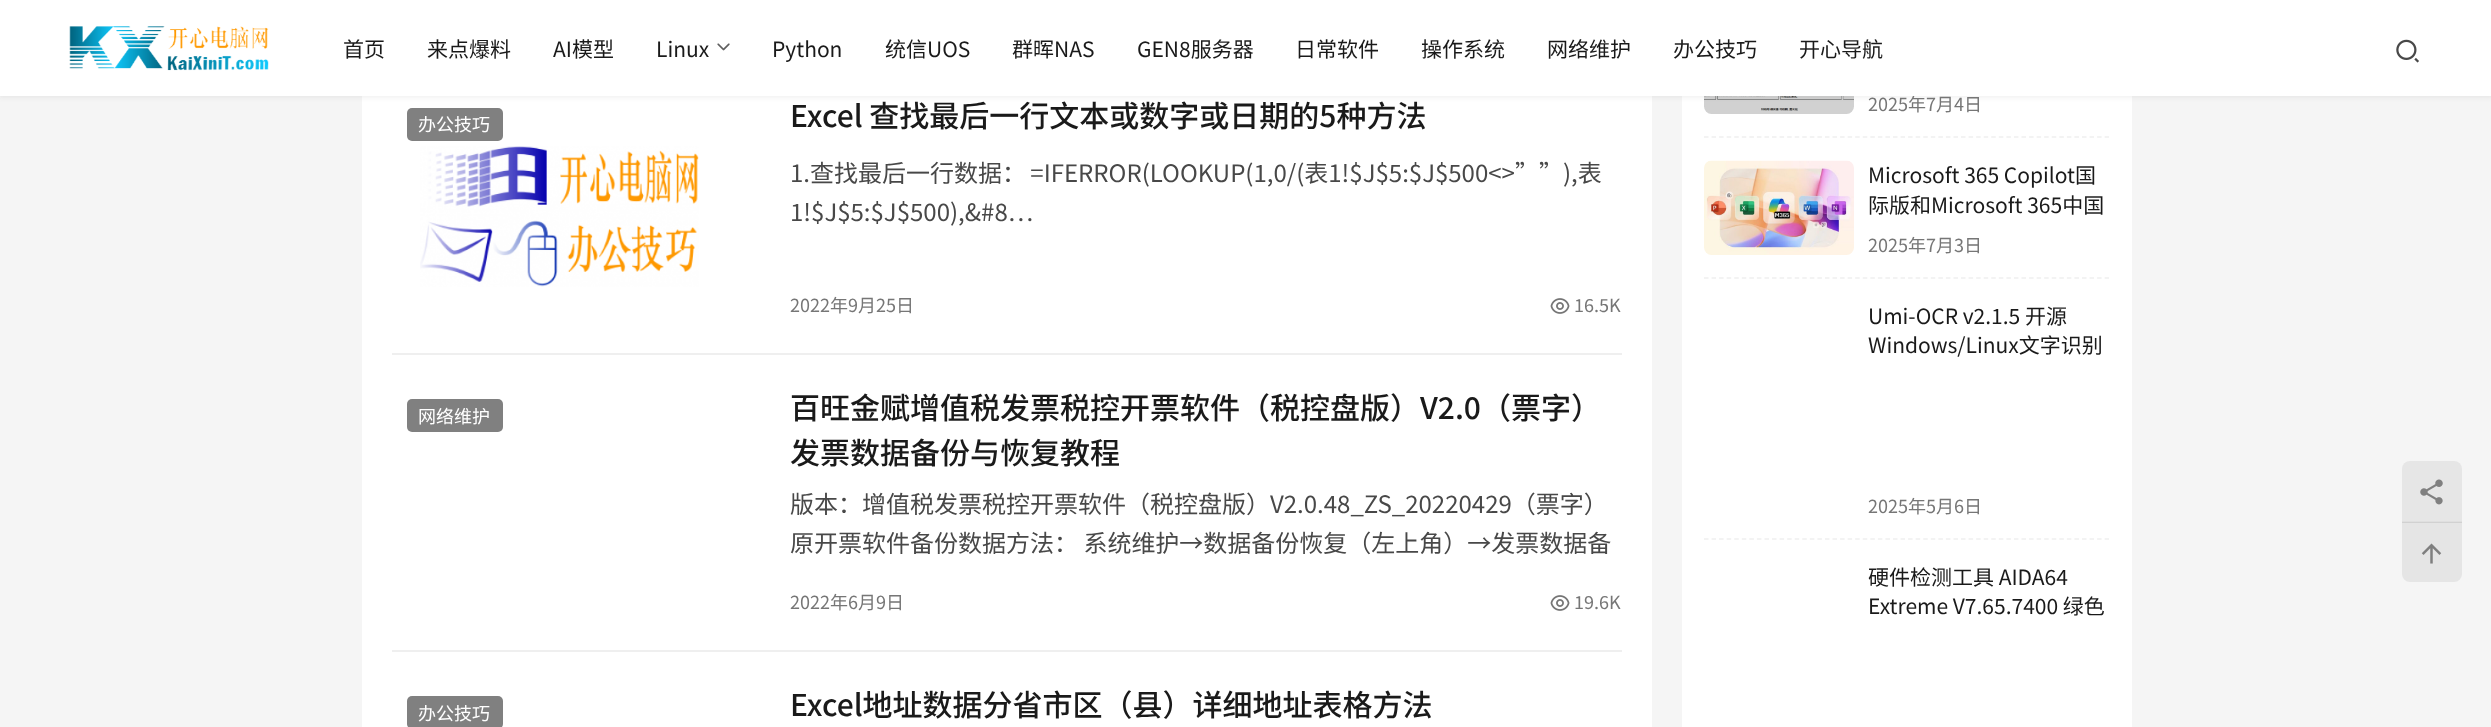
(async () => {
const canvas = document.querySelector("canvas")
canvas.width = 2491
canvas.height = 727
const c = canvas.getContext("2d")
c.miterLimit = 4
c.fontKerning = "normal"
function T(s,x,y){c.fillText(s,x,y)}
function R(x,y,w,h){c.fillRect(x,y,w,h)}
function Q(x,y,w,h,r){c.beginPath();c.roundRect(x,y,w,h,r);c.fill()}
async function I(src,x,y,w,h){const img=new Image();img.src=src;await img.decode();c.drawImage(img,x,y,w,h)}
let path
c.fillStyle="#f5f5f5"
R(0,0,2491,727)
c.fillStyle="#fff"
R(362,96,1290,631)
R(1682,96,450,631)
await I("6.png",1704,96,150,18)
c.fillStyle="#1a1a1a0f"
c.filter="blur(2px)"
c.beginPath()
c.rect(-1,-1,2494,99)
c.fill()
c.filter="none"
c.font="18px Noto Sans CJK SC"
c.fillStyle="#767676"
T("2025年7月4日",1868,111)
c.fillStyle="#fff"
R(0,0,2491,96)
await I("1.png",69,26,200,45)
c.font="21px Noto Sans CJK SC"
c.fillStyle="#1a1a1a"
T("首页",343,57)
T("来点爆料",427,57)
T("AI模型",553,57)
T("Linux",656,57)
await I("2.png",717,43,13,8)
T("Python",772,57)
T("统信UOS",885,57)
T("群晖NAS",1012,57)
T("GEN8服务器",1137,57)
T("日常软件",1295,57)
T("操作系统",1421,57)
T("网络维护",1547,57)
T("办公技巧",1673,57)
T("开心导航",1799,57)
await I("3.png",2396,39,23,24)
c.fillStyle="#efefef"
R(392,353,1230,2)
c.fillStyle="#808080"
Q(407,108,96,33,5)
c.font="18px Noto Sans CJK SC"
c.fillStyle="#fff"
T("办公技巧",418,131)
await I("4.png",420,146,279,141)
c.font="500 30px Noto Sans CJK SC"
c.fillStyle="#1a1a1a"
T("Excel 查找最后一行文本或数字或日期的5种方法",790,127)
c.wordSpacing="-1px"
c.font="24px Noto Sans CJK SC"
c.fillStyle="#484848"
T("1.查找最后一行数据： =IFERROR(LOOKUP(1,0/(表1!$J$5:$J$500<>””),表",790,182)
c.wordSpacing="0px"
T("1!$J$5:$J$500),&#8…",790,221)
c.font="18px Noto Sans CJK SC"
c.fillStyle="#767676"
T("2022年9月25日",790,312)
await I("5.png",1550,298,20,16)
T("16.5K",1574,312)
c.fillStyle="#efefef"
R(392,650,1230,2)
c.fillStyle="#808080"
Q(407,399,96,33,5)
c.fillStyle="#fff"
T("网络维护",418,423)
c.font="500 30px Noto Sans CJK SC"
c.fillStyle="#1a1a1a"
T("百旺金赋增值税发票税控开票软件（税控盘版）V2.0（票字）",790,419)
T("发票数据备份与恢复教程",790,464)
c.font="24px Noto Sans CJK SC"
c.fillStyle="#484848"
T("版本：增值税发票税控开票软件（税控盘版）V2.0.48_ZS_20220429（票字）",790,513)
T("原开票软件备份数据方法： 系统维护→数据备份恢复（左上角）→发票数据备",790,552)
c.font="18px Noto Sans CJK SC"
c.fillStyle="#767676"
T("2022年6月9日",790,609)
await I("5.png",1550,595,20,16)
T("19.6K",1574,609)
c.fillStyle="#808080"
Q(407,696,96,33,5)
c.fillStyle="#fff"
T("办公技巧",418,720)
c.font="500 30px Noto Sans CJK SC"
c.fillStyle="#1a1a1a"
T("Excel地址数据分省市区（县）详细地址表格方法",790,716)
path = new Path2D("M1704 137h405")
c.strokeStyle="#efefef"
c.lineWidth=1.5
c.setLineDash([4.5,3.06])
c.stroke(path)
path = new Path2D("M1704 278h405")
c.stroke(path)
await I("7.png",1704,160,150,95)
c.font="21px Noto Sans CJK SC"
T("Microsoft 365 Copilot国",1868,183)
T("际版和Microsoft 365中国",1868,213)
c.font="18px Noto Sans CJK SC"
c.fillStyle="#767676"
T("2025年7月3日",1868,252)
path = new Path2D("M1704 539h405")
c.stroke(path)
c.font="21px Noto Sans CJK SC"
c.fillStyle="#1a1a1a"
T("Umi-OCR v2.1.5 开源",1868,324)
T("Windows/Linux文字识别",1868,353)
c.font="18px Noto Sans CJK SC"
c.fillStyle="#767676"
T("2025年5月6日",1868,513)
c.font="21px Noto Sans CJK SC"
c.fillStyle="#1a1a1a"
T("硬件检测工具 AIDA64",1868,585)
T("Extreme V7.65.7400 绿色",1868,614)
c.fillStyle="#e6e6e6"
c.beginPath()
c.roundRect(2402,461,60,60,[8,8,0,0])
c.fill()
await I("8.png",2420,479,23,26)
c.fillStyle="#dfdfdf"
R(2402,521,60,2)
c.fillStyle="#1a1a1a12"
c.beginPath()
c.roundRect(2402,522,60,60,[0,0,8,8])
c.fill()
await I("9.png",2421,543,21,21)
})()
